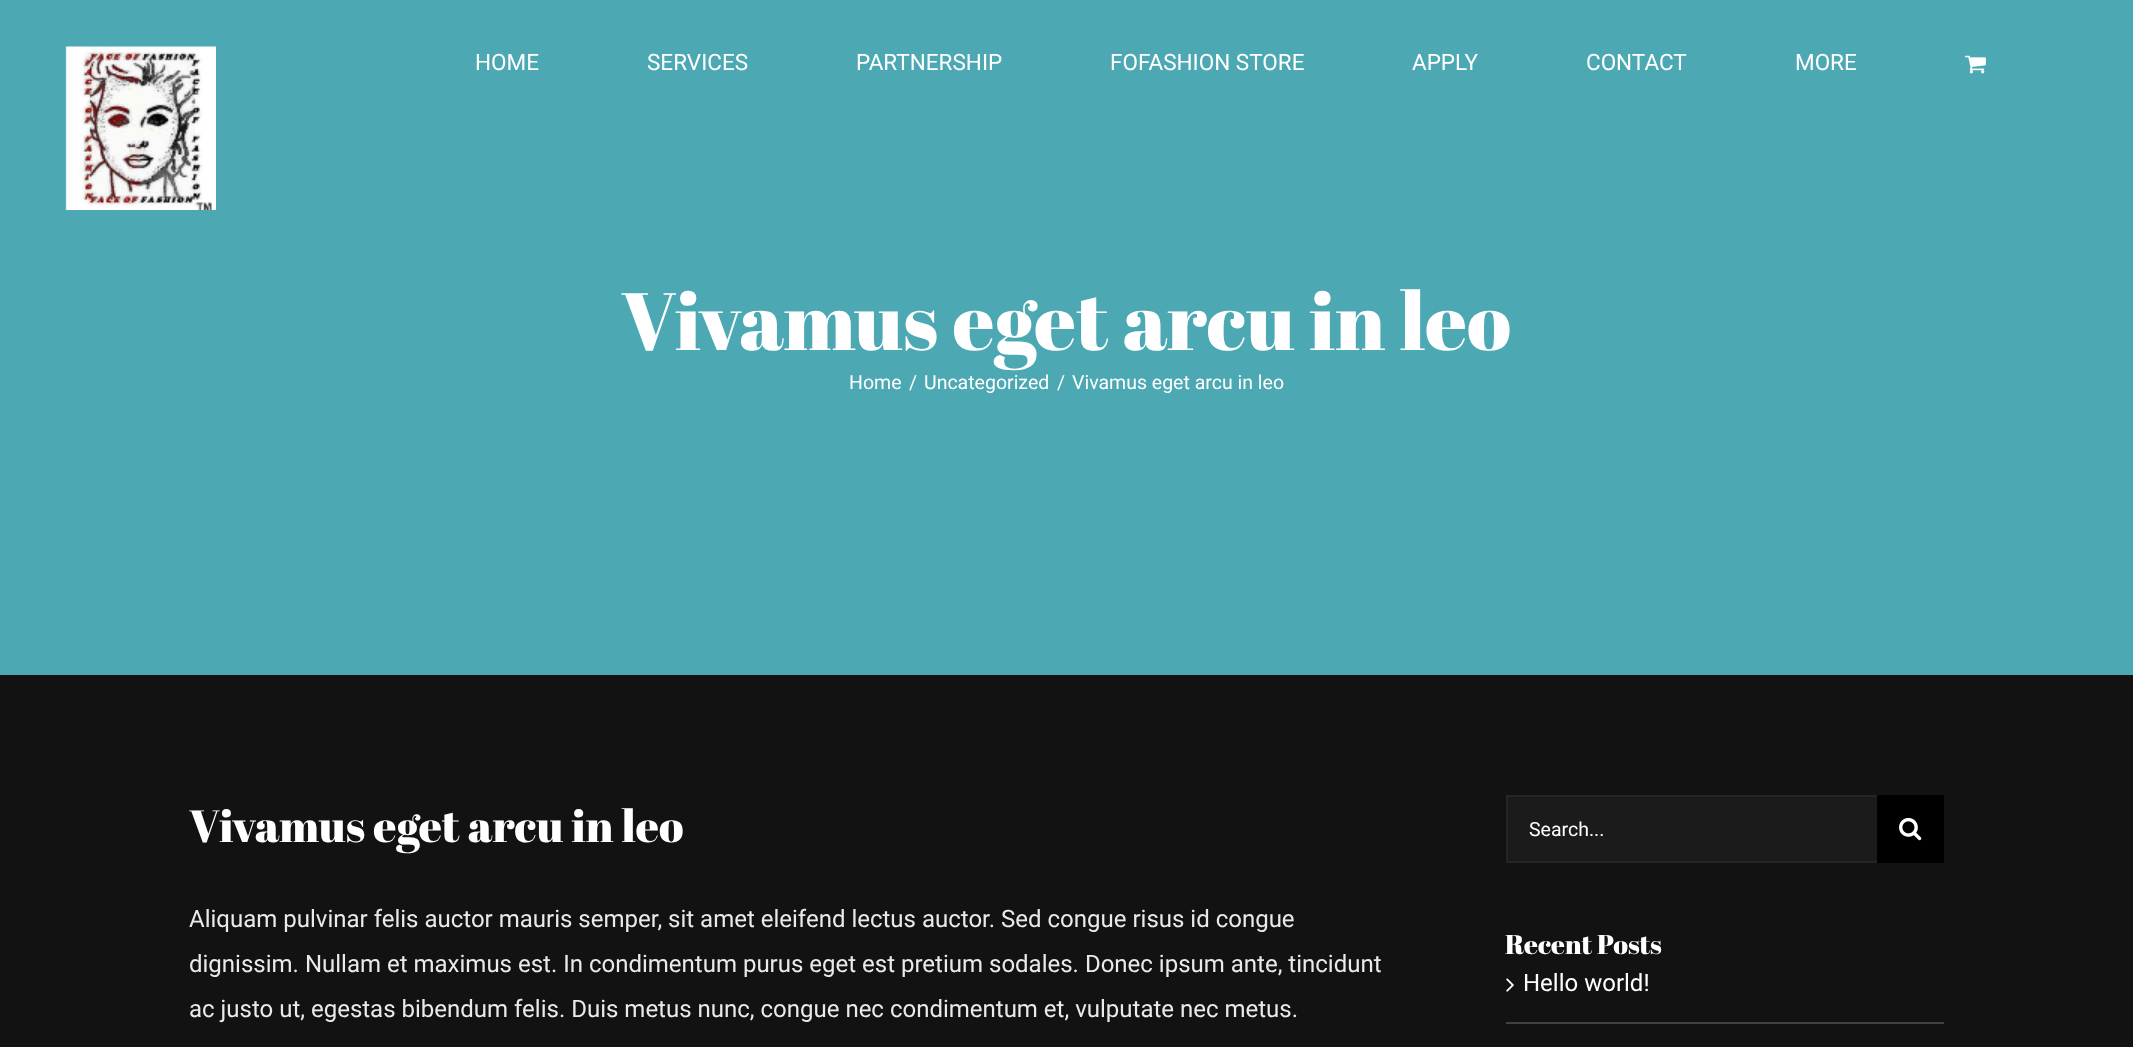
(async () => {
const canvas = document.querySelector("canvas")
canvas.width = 2133
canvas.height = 1047
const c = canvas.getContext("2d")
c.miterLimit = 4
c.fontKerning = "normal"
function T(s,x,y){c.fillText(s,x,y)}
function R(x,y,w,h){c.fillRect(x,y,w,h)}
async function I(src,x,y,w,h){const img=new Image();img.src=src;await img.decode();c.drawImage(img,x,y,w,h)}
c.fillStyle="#121213"
R(0,0,2133,1047)
c.fillStyle="#4ca9b4"
R(0,0,2133,675)
await I("1.png",65,46,151,164)
c.font="22.5px Roboto"
c.fillStyle="#fff"
T("HOME",475,70)
T("SERVICES",647,70)
T("PARTNERSHIP",856,70)
T("FOFASHION STORE",1110,70)
T("APPLY",1412,70)
T("CONTACT",1586,70)
T("MORE",1795,70)
await I("2.png",1965,55,21,19)
c.font="81px Abril Fatface"
T("Vivamus eget arcu in leo",621,350)
c.font="19.5px Roboto"
T("Home",849,389)
T("/",909,389)
T("Uncategorized",924,389)
T("/",1057,389)
T("Vivamus eget arcu in leo",1072,389)
c.font="45px Abril Fatface"
T("Vivamus eget arcu in leo",189,842)
c.font="24px Roboto"
c.fillStyle="#eaeaea"
T("Aliquam pulvinar felis auctor mauris semper, sit amet eleifend lectus auctor. Sed congue risus id congue",189,927)
T("dignissim. Nullam et maximus est. In condimentum purus eget est pretium sodales. Donec ipsum ante, tincidunt",189,972)
T("ac justo ut, egestas bibendum felis. Duis metus nunc, congue nec condimentum et, vulputate nec metus.",189,1017)
c.fillStyle="#1b1b1c"
R(1508,797,369,64)
c.fillStyle="#242528"
R(1506,795,371,2)
R(1506,861,371,2)
R(1506,795,2,68)
c.font="19.5px Roboto"
c.fillStyle="#fff"
T("Search...",1529,836)
c.fillStyle="#000"
R(1877,795,67,68)
await I("3.png",1899,817,23,24)
c.font="27px Abril Fatface"
c.fillStyle="#fff"
T("Recent Posts",1505,954)
c.fillStyle="#414142"
R(1506,1022,438,2)
await I("4.png",1506,978,8,14)
c.font="24px Roboto"
c.fillStyle="#fff"
T("Hello world!",1523,991)
})()
